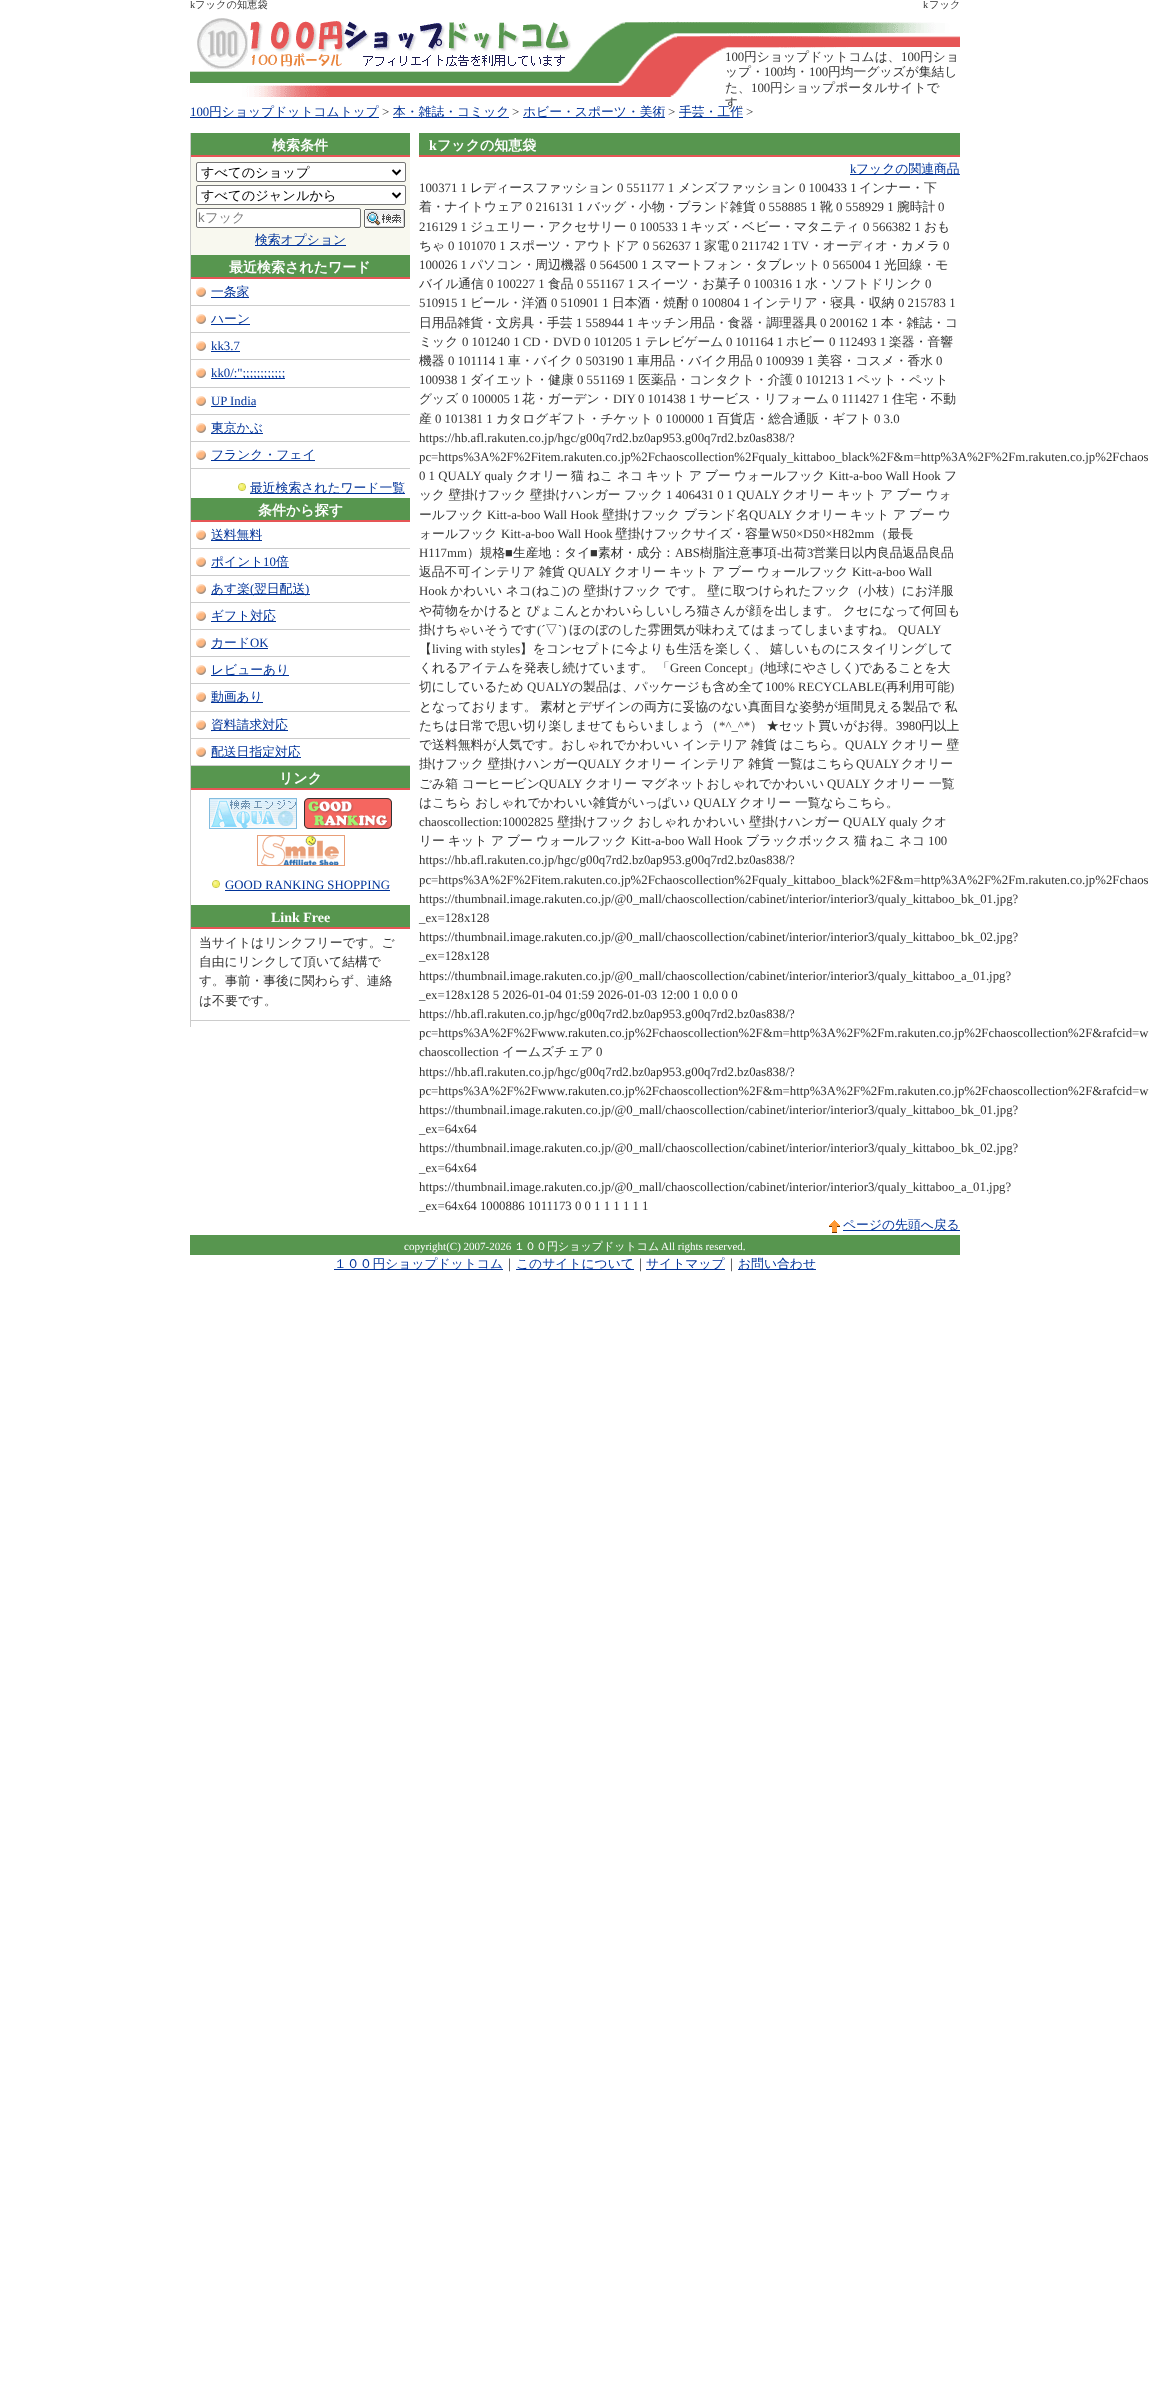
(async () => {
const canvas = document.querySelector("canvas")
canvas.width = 1150
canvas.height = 2392
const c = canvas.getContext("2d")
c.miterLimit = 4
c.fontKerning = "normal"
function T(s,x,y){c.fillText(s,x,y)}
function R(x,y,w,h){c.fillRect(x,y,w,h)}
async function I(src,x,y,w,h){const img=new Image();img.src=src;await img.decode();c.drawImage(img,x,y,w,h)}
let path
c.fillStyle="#fff"
R(0,0,1150,2392)
c.font="10.25px Liberation Serif"
c.fillStyle="#333"
T("k",190,8)
c.font="500 10.25px WenQuanYi Zen Hei"
T("フックの知恵袋",195,8)
c.font="10.25px Liberation Serif"
T("k",923,8)
c.font="500 10.25px WenQuanYi Zen Hei"
T("フック",929,8)
await I("1.png",190,18,770,79)
c.font="12.8px Liberation Serif"
T("100",725,61)
c.font="500 12.8px WenQuanYi Zen Hei"
T("円ショップドットコムは、",744,61)
c.font="12.8px Liberation Serif"
T("100",901,61)
c.font="500 12.8px WenQuanYi Zen Hei"
T("円ショ",920,61)
T("ップ・",725,76)
c.font="12.8px Liberation Serif"
T("100",764,76)
c.font="500 12.8px WenQuanYi Zen Hei"
T("均・",783,76)
c.font="12.8px Liberation Serif"
T("100",809,76)
c.font="500 12.8px WenQuanYi Zen Hei"
T("円均一グッズが集結し",828,76)
T("た、",725,92)
c.font="12.8px Liberation Serif"
T("100",751,92)
c.font="500 12.8px WenQuanYi Zen Hei"
T("円ショップポータルサイトで",770,92)
T("す。",725,107)
c.font="12.8px Liberation Serif"
c.fillStyle="#039"
T("100",190,116)
R(190,117,189,1)
c.font="500 12.8px WenQuanYi Zen Hei"
T("円ショップドットコムトップ",209,116)
c.font="12.8px Liberation Serif"
c.fillStyle="#333"
T(">",382,116)
c.fillStyle="#039"
R(393,117,116,1)
c.font="500 12.8px WenQuanYi Zen Hei"
T("本・雑誌・コミック",393,116)
c.font="12.8px Liberation Serif"
c.fillStyle="#333"
T(">",512,116)
c.fillStyle="#039"
R(523,117,142,1)
c.font="500 12.8px WenQuanYi Zen Hei"
T("ホビー・スポーツ・美術",523,116)
c.font="12.8px Liberation Serif"
c.fillStyle="#333"
T(">",668,116)
c.fillStyle="#039"
R(679,117,64,1)
c.font="500 12.8px WenQuanYi Zen Hei"
T("手芸・工作",679,116)
c.font="12.8px Liberation Serif"
c.fillStyle="#333"
T(">",746,116)
c.fillStyle="#ccc"
R(190,133,1,894)
c.fillStyle="#57964f"
R(191,133,219,22)
c.fillStyle="#e65555"
R(191,155,219,2)
c.font="bold 14px WenQuanYi Zen Hei"
c.fillStyle="#fff"
T("検索条件",272,150)
c.fillStyle="#f8f8ef"
R(191,157,219,98)
c.fillStyle="#fff"
c.beginPath()
c.roundRect(196.5,162.5,209,19,1.5)
c.fill()
c.strokeStyle="#767676"
c.stroke()
path = new Path2D("M392.5 170l4 4l4-4")
c.strokeStyle="#000"
c.lineWidth=2
c.stroke(path)
c.font="500 13.25px WenQuanYi Zen Hei"
c.fillStyle="#000"
T("すべてのショップ",201,177)
c.fillStyle="#fff"
c.beginPath()
c.roundRect(196.5,185.5,209,19,1.5)
c.fill()
c.strokeStyle="#767676"
c.lineWidth=1
c.stroke()
path = new Path2D("M392.5 193l4 4l4-4")
c.strokeStyle="#000"
c.lineWidth=2
c.stroke(path)
c.fillStyle="#000"
T("すべてのジャンルから",201,200)
c.fillStyle="#fff"
c.beginPath()
c.roundRect(196.5,208.5,164,19,1.5)
c.fill()
c.strokeStyle="#767676"
c.lineWidth=1
c.stroke()
c.font="13.25px Liberation Sans"
c.fillStyle="#808080"
T("k",198,222)
c.font="500 13.25px WenQuanYi Zen Hei"
T("フック",205,222)
await I("2.png",364,209,41,19)
c.fillStyle="#039"
R(255,245,91,1)
c.font="500 12.8px WenQuanYi Zen Hei"
T("検索オプション",255,244)
c.fillStyle="#57964f"
R(191,255,219,22)
c.fillStyle="#e65555"
R(191,277,219,2)
c.font="bold 14px WenQuanYi Zen Hei"
c.fillStyle="#fff"
T("最近検索されたワード",229,272)
await I("3.png",196,287,10,10)
c.fillStyle="#ccc"
R(191,305,219,1)
c.fillStyle="#039"
R(211,297,38,1)
c.font="500 12.8px WenQuanYi Zen Hei"
T("一条家",211,296)
await I("3.png",196,314,10,10)
c.fillStyle="#ccc"
R(191,332,219,1)
c.fillStyle="#039"
T("ハーン",211,323)
R(211,324,39,1)
await I("3.png",196,341,10,10)
c.fillStyle="#ccc"
R(191,359,219,1)
c.font="12.8px Liberation Serif"
c.fillStyle="#039"
T("kk3.7",211,350)
R(211,351,29,1)
await I("3.png",196,368,10,10)
c.fillStyle="#ccc"
R(191,387,219,1)
c.fillStyle="#039"
R(211,378,74,1)
T("kk0/:\";;;;;;;;;;;;",211,377)
await I("3.png",196,396,10,10)
c.fillStyle="#ccc"
R(191,414,219,1)
c.fillStyle="#039"
T("UP India",211,405)
R(211,406,45,1)
await I("3.png",196,423,10,10)
c.fillStyle="#ccc"
R(191,441,219,1)
c.fillStyle="#039"
R(211,433,52,1)
c.font="500 12.8px WenQuanYi Zen Hei"
T("東京かぶ",211,432)
await I("3.png",196,450,10,10)
c.fillStyle="#ccc"
R(191,468,219,1)
c.fillStyle="#039"
R(211,460,104,1)
T("フランク・フェイ",211,459)
await I("4.png",238,483,8,8)
R(250,493,155,1)
T("最近検索されたワード一覧",250,492)
c.fillStyle="#57964f"
R(191,498,219,22)
c.fillStyle="#e65555"
R(191,520,219,2)
c.font="bold 14px WenQuanYi Zen Hei"
c.fillStyle="#fff"
T("条件から探す",258,515)
await I("3.png",196,530,10,10)
c.fillStyle="#ccc"
R(191,548,219,1)
c.fillStyle="#039"
R(211,540,51,1)
c.font="500 12.8px WenQuanYi Zen Hei"
T("送料無料",211,539)
await I("3.png",196,557,10,10)
c.fillStyle="#ccc"
R(191,575,219,1)
c.fillStyle="#039"
R(211,567,78,1)
T("ポイント",211,566)
c.font="12.8px Liberation Serif"
T("10",263,566)
c.font="500 12.8px WenQuanYi Zen Hei"
T("倍",276,566)
await I("3.png",196,584,10,10)
c.fillStyle="#ccc"
R(191,602,219,1)
c.fillStyle="#039"
R(211,594,99,1)
T("あす楽",211,593)
c.font="12.8px Liberation Serif"
T("(",250,593)
c.font="500 12.8px WenQuanYi Zen Hei"
T("翌日配送",254,593)
c.font="12.8px Liberation Serif"
T(")",305,593)
await I("3.png",196,611,10,10)
c.fillStyle="#ccc"
R(191,629,219,1)
c.fillStyle="#039"
R(211,621,65,1)
c.font="500 12.8px WenQuanYi Zen Hei"
T("ギフト対応",211,620)
await I("3.png",196,638,10,10)
c.fillStyle="#ccc"
R(191,656,219,1)
c.fillStyle="#039"
R(211,648,57,1)
T("カード",211,647)
c.font="12.8px Liberation Serif"
T("OK",250,647)
await I("3.png",196,665,10,10)
c.fillStyle="#ccc"
R(191,683,219,1)
c.fillStyle="#039"
R(211,675,78,1)
c.font="500 12.8px WenQuanYi Zen Hei"
T("レビューあり",211,674)
await I("3.png",196,692,10,10)
c.fillStyle="#ccc"
R(191,711,219,1)
c.fillStyle="#039"
R(211,702,52,1)
T("動画あり",211,701)
await I("3.png",196,720,10,10)
c.fillStyle="#ccc"
R(191,738,219,1)
c.fillStyle="#039"
R(211,730,77,1)
T("資料請求対応",211,729)
await I("3.png",196,747,10,10)
c.fillStyle="#ccc"
R(191,765,219,1)
c.fillStyle="#039"
R(211,757,90,1)
T("配送日指定対応",211,756)
c.fillStyle="#57964f"
R(191,766,219,22)
c.fillStyle="#e65555"
R(191,788,219,2)
c.font="bold 14px WenQuanYi Zen Hei"
c.fillStyle="#fff"
T("リンク",279,783)
await I("5.png",209,798,88,31)
await I("6.png",304,798,88,31)
await I("7.png",257,835,88,31)
await I("4.png",212,880,8,8)
c.font="12.8px Liberation Serif"
c.fillStyle="#039"
T("GOOD RANKING SHOPPING",225,889)
R(225,890,165,1)
c.fillStyle="#57964f"
R(191,905,219,22)
c.fillStyle="#e65555"
R(191,927,219,2)
c.font="bold 14px Liberation Serif"
c.fillStyle="#fff"
T("Link Free",271,922)
c.font="500 12.8px WenQuanYi Zen Hei"
c.fillStyle="#333"
T("当サイトはリンクフリーです。ご",199,947)
T("自由にリンクして頂いて結構で",199,966)
T("す。事前・事後に関わらず、連絡",199,985)
T("は不要です。",199,1005)
c.fillStyle="#ccc"
R(191,1020,219,1)
c.fillStyle="#57964f"
R(419,133,541,22)
c.fillStyle="#e65555"
R(419,155,541,2)
c.font="bold 14px Liberation Serif"
c.fillStyle="#fff"
T("k",429,150)
c.font="bold 14px WenQuanYi Zen Hei"
T("フックの知恵袋",437,150)
c.font="12.8px Liberation Serif"
c.fillStyle="#039"
T("k",850,173)
R(850,174,110,1)
c.font="500 12.8px WenQuanYi Zen Hei"
T("フックの関連商品",856,173)
c.font="12.8px Liberation Serif"
c.fillStyle="#333"
T("100371 1",419,192)
c.font="500 12.8px WenQuanYi Zen Hei"
T("レディースファッション",470,192)
c.font="12.8px Liberation Serif"
T("0 551177 1",617,192)
c.font="500 12.8px WenQuanYi Zen Hei"
T("メンズファッション",678,192)
c.font="12.8px Liberation Serif"
T("0 100433 1",799,192)
c.font="500 12.8px WenQuanYi Zen Hei"
T("インナー・下",859,192)
T("着・ナイトウェア",419,211)
c.font="12.8px Liberation Serif"
T("0 216131 1",526,211)
c.font="500 12.8px WenQuanYi Zen Hei"
T("バッグ・小物・ブランド雑貨",587,211)
c.font="12.8px Liberation Serif"
T("0 558885 1",759,211)
c.font="500 12.8px WenQuanYi Zen Hei"
T("靴",820,211)
c.font="12.8px Liberation Serif"
T("0 558929 1",836,211)
c.font="500 12.8px WenQuanYi Zen Hei"
T("腕時計",897,211)
c.font="12.8px Liberation Serif"
T("0",938,211)
T("216129 1",419,231)
c.font="500 12.8px WenQuanYi Zen Hei"
T("ジュエリー・アクセサリー",470,231)
c.font="12.8px Liberation Serif"
T("0 100533 1",630,231)
c.font="500 12.8px WenQuanYi Zen Hei"
T("キッズ・ベビー・マタニティ",690,231)
c.font="12.8px Liberation Serif"
T("0 566382 1",863,231)
c.font="500 12.8px WenQuanYi Zen Hei"
T("おも",924,231)
T("ちゃ",419,250)
c.font="12.8px Liberation Serif"
T("0 101070 1",448,250)
c.font="500 12.8px WenQuanYi Zen Hei"
T("スポーツ・アウトドア",509,250)
c.font="12.8px Liberation Serif"
T("0 562637 1",643,250)
c.font="500 12.8px WenQuanYi Zen Hei"
T("家電",704,250)
c.font="12.8px Liberation Serif"
T("0 211742 1 TV",732,250)
c.font="500 12.8px WenQuanYi Zen Hei"
T("・オーディオ・カメラ",810,250)
c.font="12.8px Liberation Serif"
T("0",943,250)
T("100026 1",419,269)
c.font="500 12.8px WenQuanYi Zen Hei"
T("パソコン・周辺機器",470,269)
c.font="12.8px Liberation Serif"
T("0 564500 1",590,269)
c.font="500 12.8px WenQuanYi Zen Hei"
T("スマートフォン・タブレット",651,269)
c.font="12.8px Liberation Serif"
T("0 565004 1",823,269)
c.font="500 12.8px WenQuanYi Zen Hei"
T("光回線・モ",884,269)
T("バイル通信",419,288)
c.font="12.8px Liberation Serif"
T("0 100227 1",487,288)
c.font="500 12.8px WenQuanYi Zen Hei"
T("食品",548,288)
c.font="12.8px Liberation Serif"
T("0 551167 1",577,288)
c.font="500 12.8px WenQuanYi Zen Hei"
T("スイーツ・お菓子",637,288)
c.font="12.8px Liberation Serif"
T("0 100316 1",744,288)
c.font="500 12.8px WenQuanYi Zen Hei"
T("水・ソフトドリンク",805,288)
c.font="12.8px Liberation Serif"
T("0",925,288)
T("510915 1",419,307)
c.font="500 12.8px WenQuanYi Zen Hei"
T("ビール・洋酒",470,307)
c.font="12.8px Liberation Serif"
T("0 510901 1",551,307)
c.font="500 12.8px WenQuanYi Zen Hei"
T("日本酒・焼酎",612,307)
c.font="12.8px Liberation Serif"
T("0 100804 1",692,307)
c.font="500 12.8px WenQuanYi Zen Hei"
T("インテリア・寝具・収納",752,307)
c.font="12.8px Liberation Serif"
T("0 215783 1",898,307)
c.font="500 12.8px WenQuanYi Zen Hei"
T("日用品雑貨・文房具・手芸",419,327)
c.font="12.8px Liberation Serif"
T("1 558944 1",576,327)
c.font="500 12.8px WenQuanYi Zen Hei"
T("キッチン用品・食器・調理器具",637,327)
c.font="12.8px Liberation Serif"
T("0 200162 1",820,327)
c.font="500 12.8px WenQuanYi Zen Hei"
T("本・雑誌・コ",881,327)
T("ミック",419,346)
c.font="12.8px Liberation Serif"
T("0 101240 1 CD",462,346)
c.font="500 12.8px WenQuanYi Zen Hei"
T("・",540,346)
c.font="12.8px Liberation Serif"
T("DVD 0 101205 1",553,346)
c.font="500 12.8px WenQuanYi Zen Hei"
T("テレビゲーム",645,346)
c.font="12.8px Liberation Serif"
T("0 101164 1",726,346)
c.font="500 12.8px WenQuanYi Zen Hei"
T("ホビー",786,346)
c.font="12.8px Liberation Serif"
T("0 112493 1",829,346)
c.font="500 12.8px WenQuanYi Zen Hei"
T("楽器・音響",889,346)
T("機器",419,365)
c.font="12.8px Liberation Serif"
T("0 101114 1",448,365)
c.font="500 12.8px WenQuanYi Zen Hei"
T("車・バイク",508,365)
c.font="12.8px Liberation Serif"
T("0 503190 1",576,365)
c.font="500 12.8px WenQuanYi Zen Hei"
T("車用品・バイク用品",637,365)
c.font="12.8px Liberation Serif"
T("0 100939 1",756,365)
c.font="500 12.8px WenQuanYi Zen Hei"
T("美容・コスメ・香水",817,365)
c.font="12.8px Liberation Serif"
T("0",936,365)
T("100938 1",419,384)
c.font="500 12.8px WenQuanYi Zen Hei"
T("ダイエット・健康",470,384)
c.font="12.8px Liberation Serif"
T("0 551169 1",577,384)
c.font="500 12.8px WenQuanYi Zen Hei"
T("医薬品・コンタクト・介護",638,384)
c.font="12.8px Liberation Serif"
T("0 101213 1",796,384)
c.font="500 12.8px WenQuanYi Zen Hei"
T("ペット・ペット",857,384)
T("グッズ",419,403)
c.font="12.8px Liberation Serif"
T("0 100005 1",462,403)
c.font="500 12.8px WenQuanYi Zen Hei"
T("花・ガーデン・",522,403)
c.font="12.8px Liberation Serif"
T("DIY",613,403)
T("0 101438 1",638,403)
c.font="500 12.8px WenQuanYi Zen Hei"
T("サービス・リフォーム",699,403)
c.font="12.8px Liberation Serif"
T("0 111427 1",832,403)
c.font="500 12.8px WenQuanYi Zen Hei"
T("住宅・不動",892,403)
T("産",419,423)
c.font="12.8px Liberation Serif"
T("0 101381 1",435,423)
c.font="500 12.8px WenQuanYi Zen Hei"
T("カタログギフト・チケット",496,423)
c.font="12.8px Liberation Serif"
T("0 100000 1",656,423)
c.font="500 12.8px WenQuanYi Zen Hei"
T("百貨店・総合通販・ギフト",717,423)
c.font="12.8px Liberation Serif"
T("0 3.0",874,423)
T("https://hb.afl.rakuten.co.jp/hgc/g00q7rd2.bz0ap953.g00q7rd2.bz0as838/?",419,442)
T("pc=https%3A%2F%2Fitem.rakuten.co.jp%2Fchaoscollection%2Fqualy_kittaboo_black%2F&m=http%3A%2F%2Fm.rakuten.co.jp%2Fchaos",419,461)
T("0 1 QUALY qualy",419,480)
c.font="500 12.8px WenQuanYi Zen Hei"
T("クオリー",516,480)
T("猫",571,480)
T("ねこ",587,480)
T("ネコ",617,480)
T("キット",646,480)
T("ア",689,480)
T("ブー",705,480)
T("ウォールフック",734,480)
c.font="12.8px Liberation Serif"
T("Kitt-a-boo Wall Hook",829,480)
c.font="500 12.8px WenQuanYi Zen Hei"
T("フ",944,480)
c.wordSpacing="-0.5px"
T("ック 壁掛けフック 壁掛けハンガー フック",419,499)
c.wordSpacing="0px"
c.font="12.8px Liberation Serif"
T("1 406431 0 1 QUALY",666,499)
c.wordSpacing="-0.5px"
c.font="500 12.8px WenQuanYi Zen Hei"
T("クオリー キット ア ブー ウォ",782,499)
c.wordSpacing="0px"
T("ールフック",419,519)
c.font="12.8px Liberation Serif"
T("Kitt-a-boo Wall Hook",487,519)
c.font="500 12.8px WenQuanYi Zen Hei"
T("壁掛けフック",602,519)
T("ブランド名",684,519)
c.font="12.8px Liberation Serif"
T("QUALY",749,519)
c.font="500 12.8px WenQuanYi Zen Hei"
T("クオリー",795,519)
T("キット",850,519)
T("ア",893,519)
T("ブー",909,519)
T("ウ",938,519)
T("ォールフック",419,538)
c.font="12.8px Liberation Serif"
T("Kitt-a-boo Wall Hook",501,538)
c.font="500 12.8px WenQuanYi Zen Hei"
T("壁掛けフックサイズ・容量",615,538)
c.font="12.8px Liberation Serif"
T("W50×D50×H82mm",771,538)
c.font="500 12.8px WenQuanYi Zen Hei"
T("（最長",875,538)
c.font="12.8px Liberation Serif"
T("H117mm",419,557)
c.font="500 12.8px WenQuanYi Zen Hei"
T("）規格",467,557)
c.font="12.8px Liberation Serif"
T("■",505,557)
c.font="500 12.8px WenQuanYi Zen Hei"
T("生産地：タイ",513,557)
c.font="12.8px Liberation Serif"
T("■",590,557)
c.font="500 12.8px WenQuanYi Zen Hei"
T("素材・成分：",598,557)
c.font="12.8px Liberation Serif"
T("ABS",675,557)
c.font="500 12.8px WenQuanYi Zen Hei"
T("樹脂注意事項",700,557)
c.font="12.8px Liberation Serif"
T("-",777,557)
c.font="500 12.8px WenQuanYi Zen Hei"
T("出荷",781,557)
c.font="12.8px Liberation Serif"
T("3",807,557)
c.font="500 12.8px WenQuanYi Zen Hei"
T("営業日以内良品返品良品",813,557)
T("返品不可インテリア",419,576)
T("雑貨",539,576)
c.font="12.8px Liberation Serif"
T("QUALY",568,576)
c.font="500 12.8px WenQuanYi Zen Hei"
T("クオリー",614,576)
T("キット",669,576)
T("ア",712,576)
T("ブー",728,576)
T("ウォールフック",757,576)
c.font="12.8px Liberation Serif"
T("Kitt-a-boo Wall",852,576)
T("Hook",419,595)
c.wordSpacing="-0.5px"
c.font="500 12.8px WenQuanYi Zen Hei"
T("かわいい ネコ",450,595)
c.wordSpacing="0px"
c.font="12.8px Liberation Serif"
T("(",532,595)
c.font="500 12.8px WenQuanYi Zen Hei"
T("ねこ",536,595)
c.font="12.8px Liberation Serif"
T(")",562,595)
c.wordSpacing="-0.5px"
c.font="500 12.8px WenQuanYi Zen Hei"
T("の 壁掛けフック です。 壁に取つけられたフック（小枝）にお洋服",567,595)
T("や荷物をかけると ぴょこんとかわいらしいしろ猫さんが顔を出します。 クセになって何回も",419,615)
c.wordSpacing="0px"
T("掛けちゃいそうです",419,634)
c.font="12.8px Liberation Serif"
T("(´",537,634)
c.font="500 12.8px WenQuanYi Zen Hei"
T("▽",545,634)
c.font="12.8px Liberation Serif"
T("`)",558,634)
c.font="500 12.8px WenQuanYi Zen Hei"
T("ほのぼのした雰囲気が味わえてはまってしまいますね。",569,634)
c.font="12.8px Liberation Serif"
T("QUALY",898,634)
c.font="500 12.8px WenQuanYi Zen Hei"
T("【",419,653)
c.font="12.8px Liberation Serif"
T("living with styles",432,653)
c.font="500 12.8px WenQuanYi Zen Hei"
T("】をコンセプトに今よりも生活を楽しく、",520,653)
T("嬉しいものにスタイリングして",770,653)
T("くれるアイテムを発表し続けています。",419,672)
T("「",657,672)
c.font="12.8px Liberation Serif"
T("Green Concept",670,672)
c.font="500 12.8px WenQuanYi Zen Hei"
T("」",747,672)
c.font="12.8px Liberation Serif"
T("(",760,672)
c.font="500 12.8px WenQuanYi Zen Hei"
T("地球にやさしく",764,672)
c.font="12.8px Liberation Serif"
T(")",855,672)
c.font="500 12.8px WenQuanYi Zen Hei"
T("であることを大",859,672)
T("切にしているため",419,691)
c.font="12.8px Liberation Serif"
T("QUALY",527,691)
c.font="500 12.8px WenQuanYi Zen Hei"
T("の製品は、パッケージも含め全て",570,691)
c.font="12.8px Liberation Serif"
T("100% RECYCLABLE(",765,691)
c.font="500 12.8px WenQuanYi Zen Hei"
T("再利用可能",886,691)
c.font="12.8px Liberation Serif"
T(")",950,691)
c.wordSpacing="-0.5px"
c.font="500 12.8px WenQuanYi Zen Hei"
T("となっております。 素材とデザインの両方に妥協のない真面目な姿勢が垣間見える製品で 私",419,711)
c.wordSpacing="0px"
T("たちは日常で思い切り楽しませてもらいましょう（",419,730)
c.font="12.8px Liberation Serif"
T("*^_^*",719,730)
c.wordSpacing="-0.5px"
c.font="500 12.8px WenQuanYi Zen Hei"
T("） ★セット買いがお得。",750,730)
c.wordSpacing="0px"
c.font="12.8px Liberation Serif"
T("3980",896,730)
c.font="500 12.8px WenQuanYi Zen Hei"
T("円以上",921,730)
c.wordSpacing="-0.5px"
T("で送料無料が人気です。おしゃれでかわいい インテリア 雑貨 はこちら。",419,749)
c.wordSpacing="0px"
c.font="12.8px Liberation Serif"
T("QUALY",845,749)
c.wordSpacing="-0.5px"
c.font="500 12.8px WenQuanYi Zen Hei"
T("クオリー 壁",891,749)
T("掛けフック 壁掛けハンガー",419,768)
c.wordSpacing="0px"
c.font="12.8px Liberation Serif"
T("QUALY",578,768)
c.wordSpacing="-0.5px"
c.font="500 12.8px WenQuanYi Zen Hei"
T("クオリー インテリア 雑貨 一覧はこちら",624,768)
c.wordSpacing="0px"
c.font="12.8px Liberation Serif"
T("QUALY",856,768)
c.font="500 12.8px WenQuanYi Zen Hei"
T("クオリー",901,768)
T("ごみ箱 コーヒービン",419,788)
c.font="12.8px Liberation Serif"
T("QUALY",539,788)
c.font="500 12.8px WenQuanYi Zen Hei"
T("クオリー マグネットおしゃれでかわいい",585,788)
c.font="12.8px Liberation Serif"
T("QUALY",827,788)
c.font="500 12.8px WenQuanYi Zen Hei"
T("クオリー 一覧",873,788)
T("はこちら",419,807)
T("おしゃれでかわいい雑貨がいっぱい",475,807)
c.font="12.8px Liberation Serif"
T("♪ QUALY",684,807)
c.font="500 12.8px WenQuanYi Zen Hei"
T("クオリー",739,807)
T("一覧ならこちら。",795,807)
c.font="12.8px Liberation Serif"
T("chaoscollection:10002825",419,826)
c.font="500 12.8px WenQuanYi Zen Hei"
T("壁掛けフック",557,826)
T("おしゃれ",638,826)
T("かわいい",693,826)
T("壁掛けハンガー",749,826)
c.font="12.8px Liberation Serif"
T("QUALY qualy",843,826)
c.font="500 12.8px WenQuanYi Zen Hei"
T("クオ",921,826)
T("リー",419,845)
T("キット",448,845)
T("ア",491,845)
T("ブー",507,845)
T("ウォールフック",536,845)
c.font="12.8px Liberation Serif"
T("Kitt-a-boo Wall Hook",631,845)
c.font="500 12.8px WenQuanYi Zen Hei"
T("ブラックボックス",746,845)
T("猫",854,845)
T("ねこ",870,845)
T("ネコ",899,845)
c.font="12.8px Liberation Serif"
T("100",928,845)
T("https://hb.afl.rakuten.co.jp/hgc/g00q7rd2.bz0ap953.g00q7rd2.bz0as838/?",419,864)
T("pc=https%3A%2F%2Fitem.rakuten.co.jp%2Fchaoscollection%2Fqualy_kittaboo_black%2F&m=http%3A%2F%2Fm.rakuten.co.jp%2Fchaos",419,884)
T("https://thumbnail.image.rakuten.co.jp/@0_mall/chaoscollection/cabinet/interior/interior3/qualy_kittaboo_bk_01.jpg?",419,903)
T("_ex=128x128",419,922)
T("https://thumbnail.image.rakuten.co.jp/@0_mall/chaoscollection/cabinet/interior/interior3/qualy_kittaboo_bk_02.jpg?",419,941)
T("_ex=128x128",419,960)
T("https://thumbnail.image.rakuten.co.jp/@0_mall/chaoscollection/cabinet/interior/interior3/qualy_kittaboo_a_01.jpg?",419,980)
T("_ex=128x128 5 2026-01-04 01:59 2026-01-03 12:00 1 0.0 0 0",419,999)
T("https://hb.afl.rakuten.co.jp/hgc/g00q7rd2.bz0ap953.g00q7rd2.bz0as838/?",419,1018)
T("pc=https%3A%2F%2Fwww.rakuten.co.jp%2Fchaoscollection%2F&m=http%3A%2F%2Fm.rakuten.co.jp%2Fchaoscollection%2F&rafcid=w",419,1037)
T("chaoscollection",419,1056)
c.font="500 12.8px WenQuanYi Zen Hei"
T("イームズチェア",502,1056)
c.font="12.8px Liberation Serif"
T("0",596,1056)
T("https://hb.afl.rakuten.co.jp/hgc/g00q7rd2.bz0ap953.g00q7rd2.bz0as838/?",419,1076)
T("pc=https%3A%2F%2Fwww.rakuten.co.jp%2Fchaoscollection%2F&m=http%3A%2F%2Fm.rakuten.co.jp%2Fchaoscollection%2F&rafcid=w",419,1095)
T("https://thumbnail.image.rakuten.co.jp/@0_mall/chaoscollection/cabinet/interior/interior3/qualy_kittaboo_bk_01.jpg?",419,1114)
T("_ex=64x64",419,1133)
T("https://thumbnail.image.rakuten.co.jp/@0_mall/chaoscollection/cabinet/interior/interior3/qualy_kittaboo_bk_02.jpg?",419,1152)
T("_ex=64x64",419,1172)
T("https://thumbnail.image.rakuten.co.jp/@0_mall/chaoscollection/cabinet/interior/interior3/qualy_kittaboo_a_01.jpg?",419,1191)
T("_ex=64x64 1000886 1011173 0 0 1 1 1 1 1 1",419,1210)
await I("8.png",829,1220,11,13)
c.fillStyle="#039"
R(843,1230,117,1)
c.font="500 12.8px WenQuanYi Zen Hei"
T("ページの先頭へ戻る",843,1229)
c.fillStyle="#57964f"
R(190,1235,770,20)
c.font="11px Liberation Serif"
c.fillStyle="#fff"
T("copyright(C) 2007-2026",404,1250)
c.font="500 11px WenQuanYi Zen Hei"
T("１００円ショップドットコム",514,1250)
c.font="11px Liberation Serif"
T("All rights reserved.",661,1250)
c.fillStyle="#039"
R(334,1269,169,1)
c.font="500 12.8px WenQuanYi Zen Hei"
T("１００円ショップドットコム",334,1268)
c.fillStyle="#333"
T("｜",503,1268)
c.fillStyle="#039"
R(516,1269,118,1)
T("このサイトについて",516,1268)
c.fillStyle="#333"
T("｜",634,1268)
c.fillStyle="#039"
R(646,1269,79,1)
T("サイトマップ",646,1268)
c.fillStyle="#333"
T("｜",725,1268)
c.fillStyle="#039"
R(738,1269,78,1)
T("お問い合わせ",738,1268)
})()
